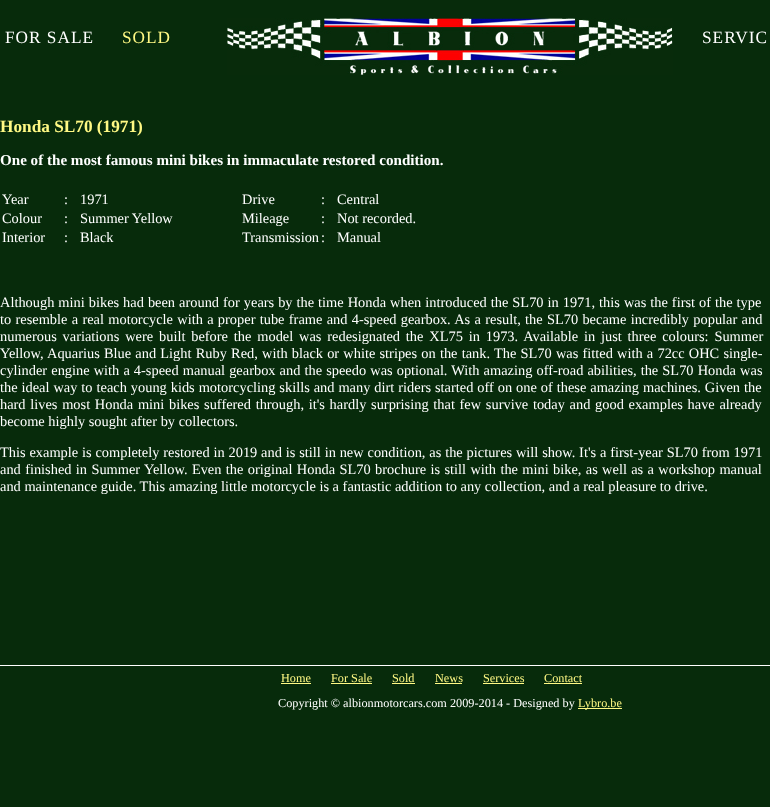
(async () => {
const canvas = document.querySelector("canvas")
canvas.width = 770
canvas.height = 807
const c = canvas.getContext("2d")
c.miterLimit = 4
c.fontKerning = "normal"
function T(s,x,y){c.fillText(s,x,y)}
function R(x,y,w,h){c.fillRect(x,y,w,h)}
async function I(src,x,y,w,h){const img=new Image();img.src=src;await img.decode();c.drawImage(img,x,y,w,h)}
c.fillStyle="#072b0b"
R(0,0,770,807)
c.letterSpacing="1px"
c.font="17.25px Liberation Serif"
c.fillStyle="#fff"
T("FOR SALE",5,43)
c.fillStyle="#fff984"
T("SOLD",122,43)
await I("1.png",227,18,446,57)
c.fillStyle="#fff"
T("SERVIC",702,43)
c.letterSpacing="0px"
c.font="bold 17.25px Liberation Serif"
c.fillStyle="#fff984"
T("Honda SL70 (1971)",0,132)
c.font="bold 15.1px Liberation Serif"
c.fillStyle="#fff"
T("One of the most famous mini bikes in immaculate restored condition.",0,165)
c.font="14.4px Liberation Serif"
T("Year",2,204)
T(":",64,204)
T("1971",80,204)
T("Drive",242,204)
T(":",321,204)
T("Central",337,204)
T("Colour",2,223)
T(":",64,223)
T("Summer Yellow",80,223)
T("Mileage",242,223)
T(":",321,223)
T("Not recorded.",337,223)
T("Interior",2,242)
T(":",64,242)
T("Black",80,242)
T("Transmission",242,242)
T(":",321,242)
T("Manual",337,242)
c.wordSpacing="0.4px"
T("Although mini bikes had been around for years by the time Honda when introduced the SL70 in 1971, this was the first of the type",0,307)
c.wordSpacing="0.7px"
T("to resemble a real motorcycle with a proper tube frame and 4-speed gearbox. As a result, the SL70 became incredibly popular and",0,324)
c.wordSpacing="2.25px"
T("numerous variations were built before the model was redesignated the XL75 in 1973. Available in just three colours: Summer",0,341)
c.wordSpacing="0.6px"
T("Yellow, Aquarius Blue and Light Ruby Red, with black or white stripes on the tank. The SL70 was fitted with a 72cc OHC single-",0,358)
c.wordSpacing="0.5px"
T("cylinder engine with a 4-speed manual gearbox and the speedo was optional. With amazing off-road abilities, the SL70 Honda was",0,375)
c.wordSpacing="0.35px"
T("the ideal way to teach young kids motorcycling skills and many dirt riders started off on one of these amazing machines. Given the",0,392)
c.wordSpacing="1.1px"
T("hard lives most Honda mini bikes suffered through, it's hardly surprising that few survive today and good examples have already",0,409)
c.wordSpacing="0px"
T("become highly sought after by collectors.",0,426)
c.wordSpacing="0.25px"
T("This example is completely restored in 2019 and is still in new condition, as the pictures will show. It's a first-year SL70 from 1971",0,457)
c.wordSpacing="0.75px"
T("and finished in Summer Yellow. Even the original Honda SL70 brochure is still with the mini bike, as well as a workshop manual",0,474)
c.wordSpacing="0px"
T("and maintenance guide. This amazing little motorcycle is a fantastic addition to any collection, and a real pleasure to drive.",0,491)
R(0,665,770,1)
c.font="12.25px Liberation Serif"
c.fillStyle="#fff984"
T("Home",281,682)
R(281,683,30,1)
T("For Sale",331,682)
R(331,683,41,1)
T("Sold",392,682)
R(392,683,23,1)
T("News",435,682)
R(435,683,27,1)
T("Services",483,682)
R(483,683,41,1)
T("Contact",544,682)
R(544,683,38,1)
c.fillStyle="#fff"
T("Copyright © albionmotorcars.com 2009-2014 - Designed by",278,707)
c.fillStyle="#fff984"
R(578,708,44,1)
T("Lybro.be",578,707)
})()
